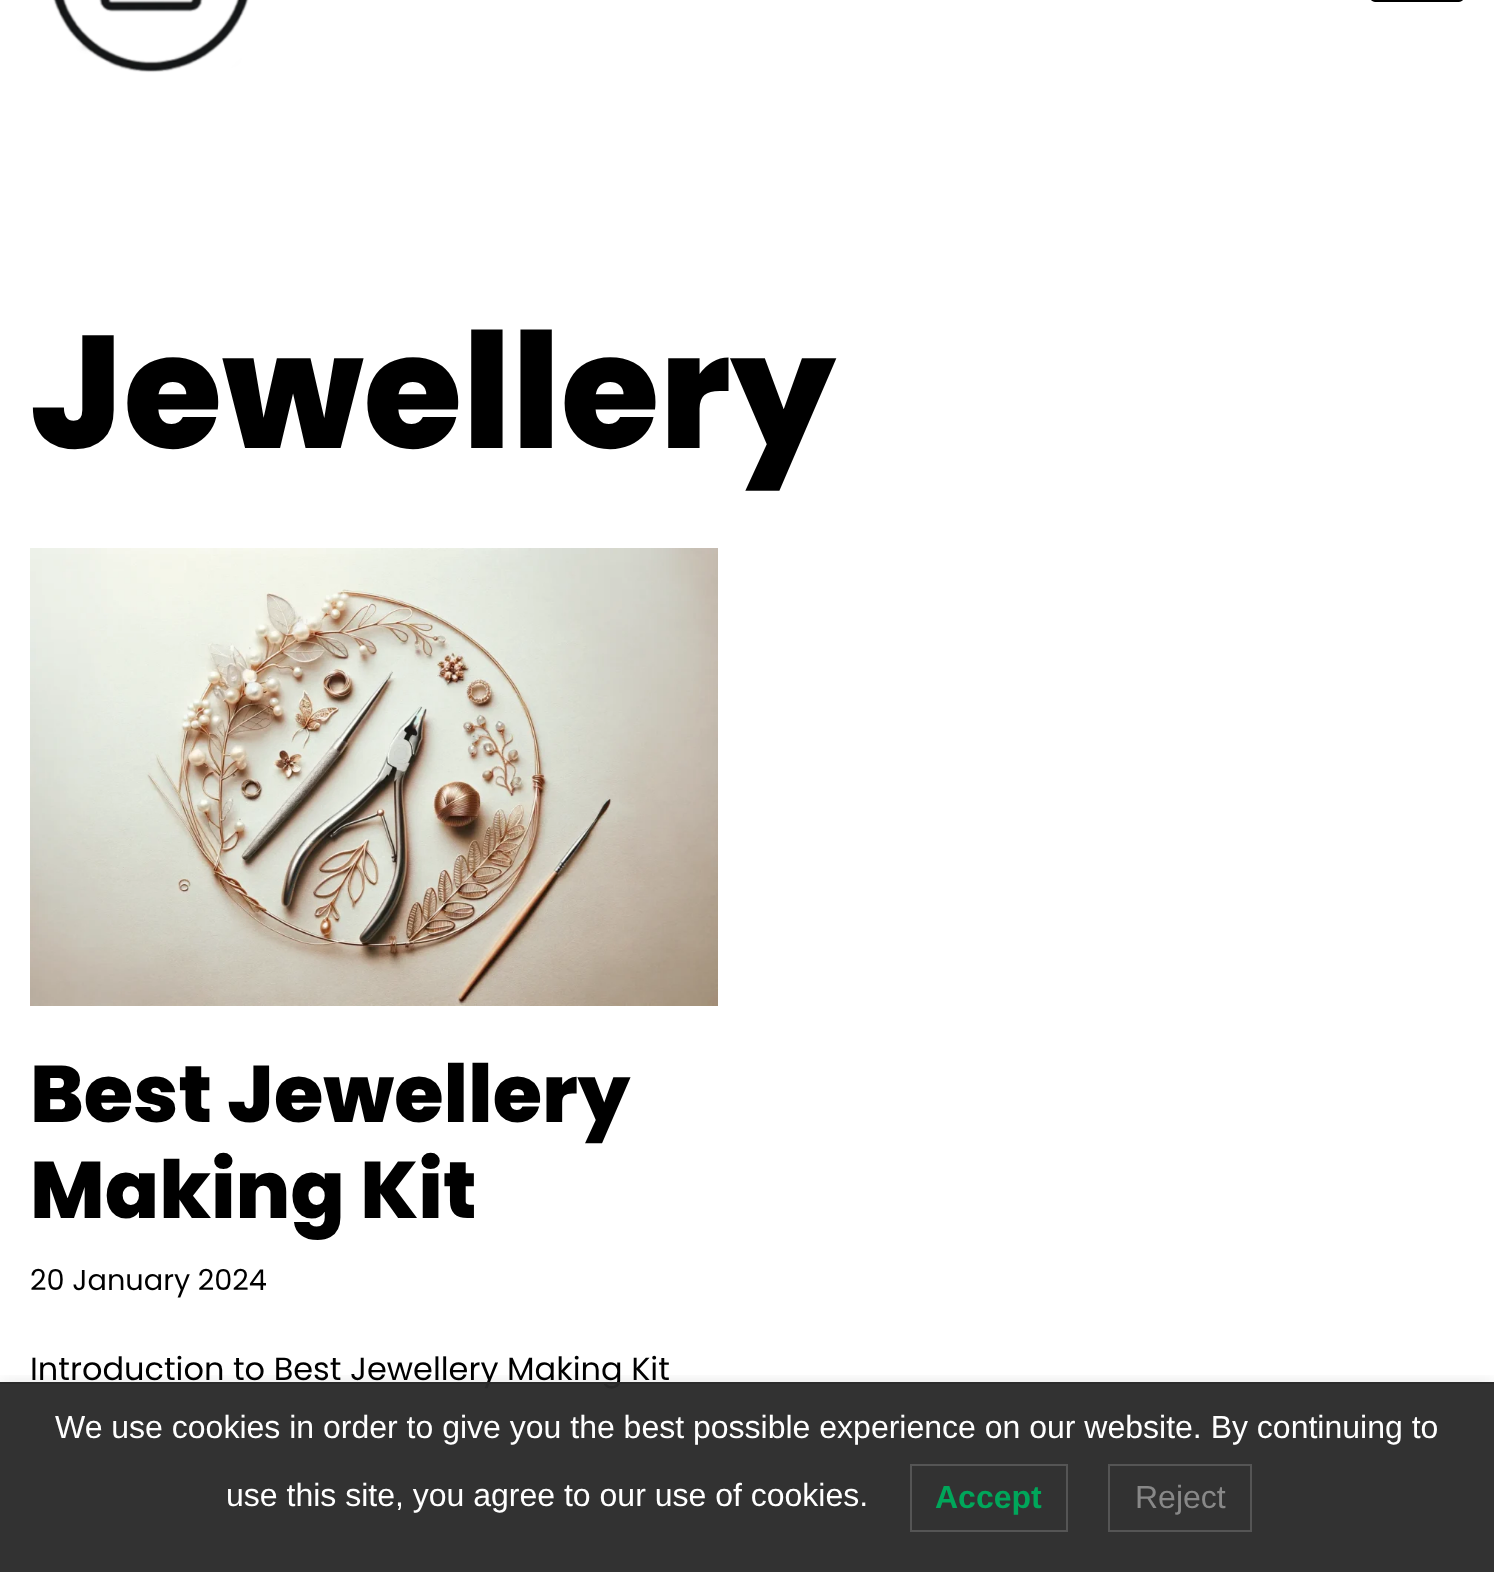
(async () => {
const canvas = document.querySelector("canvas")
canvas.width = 1494
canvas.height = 1572
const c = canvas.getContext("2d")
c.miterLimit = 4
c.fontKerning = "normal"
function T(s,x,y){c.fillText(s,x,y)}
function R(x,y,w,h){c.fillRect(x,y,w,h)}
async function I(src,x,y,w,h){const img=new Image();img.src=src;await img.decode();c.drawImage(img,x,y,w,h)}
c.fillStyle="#fff"
R(0,0,1494,1572)
c.beginPath()
c.roundRect(1371,-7,92,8,5)
c.strokeStyle="#000"
c.lineWidth=2
c.stroke()
await I("1.png",53,0,196,73)
c.font="800 160px Poppins"
c.fillStyle="#000"
T("Jewellery",30,448)
await I("2.png",30,548,688,458)
c.font="800 80px Poppins"
T("Best Jewellery",30,1122)
T("Making Kit",30,1218)
c.font="28.75px Poppins"
T("20 January 2024",30,1290)
c.font="32px Poppins"
T("Introduction to Best Jewellery Making Kit",30,1380)
c.save()
c.beginPath()
c.rect(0,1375,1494,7)
c.clip()
c.fillStyle="#0000001a"
c.filter="blur(8px)"
c.beginPath()
c.rect(0,1382,1494,190)
c.fill()
c.filter="none"
c.restore()
c.fillStyle="#2b2b2bf7"
R(0,1384,1494,188)
c.fillStyle="#2b2b2b"
R(0,1382,1494,2)
c.font="32px Liberation Sans"
c.fillStyle="#fff"
T("We use cookies in order to give you the best possible experience on our website. By continuing to",55,1438)
T("use this site, you agree to our use of cookies.",226,1506)
c.strokeStyle="#555"
c.strokeRect(911,1465,156,66)
c.font="bold 32px Liberation Sans"
c.fillStyle="#00a65a"
T("Accept",935,1508)
c.strokeRect(1109,1465,142,66)
c.font="32px Liberation Sans"
c.fillStyle="#888"
T("Reject",1135,1508)
})()
